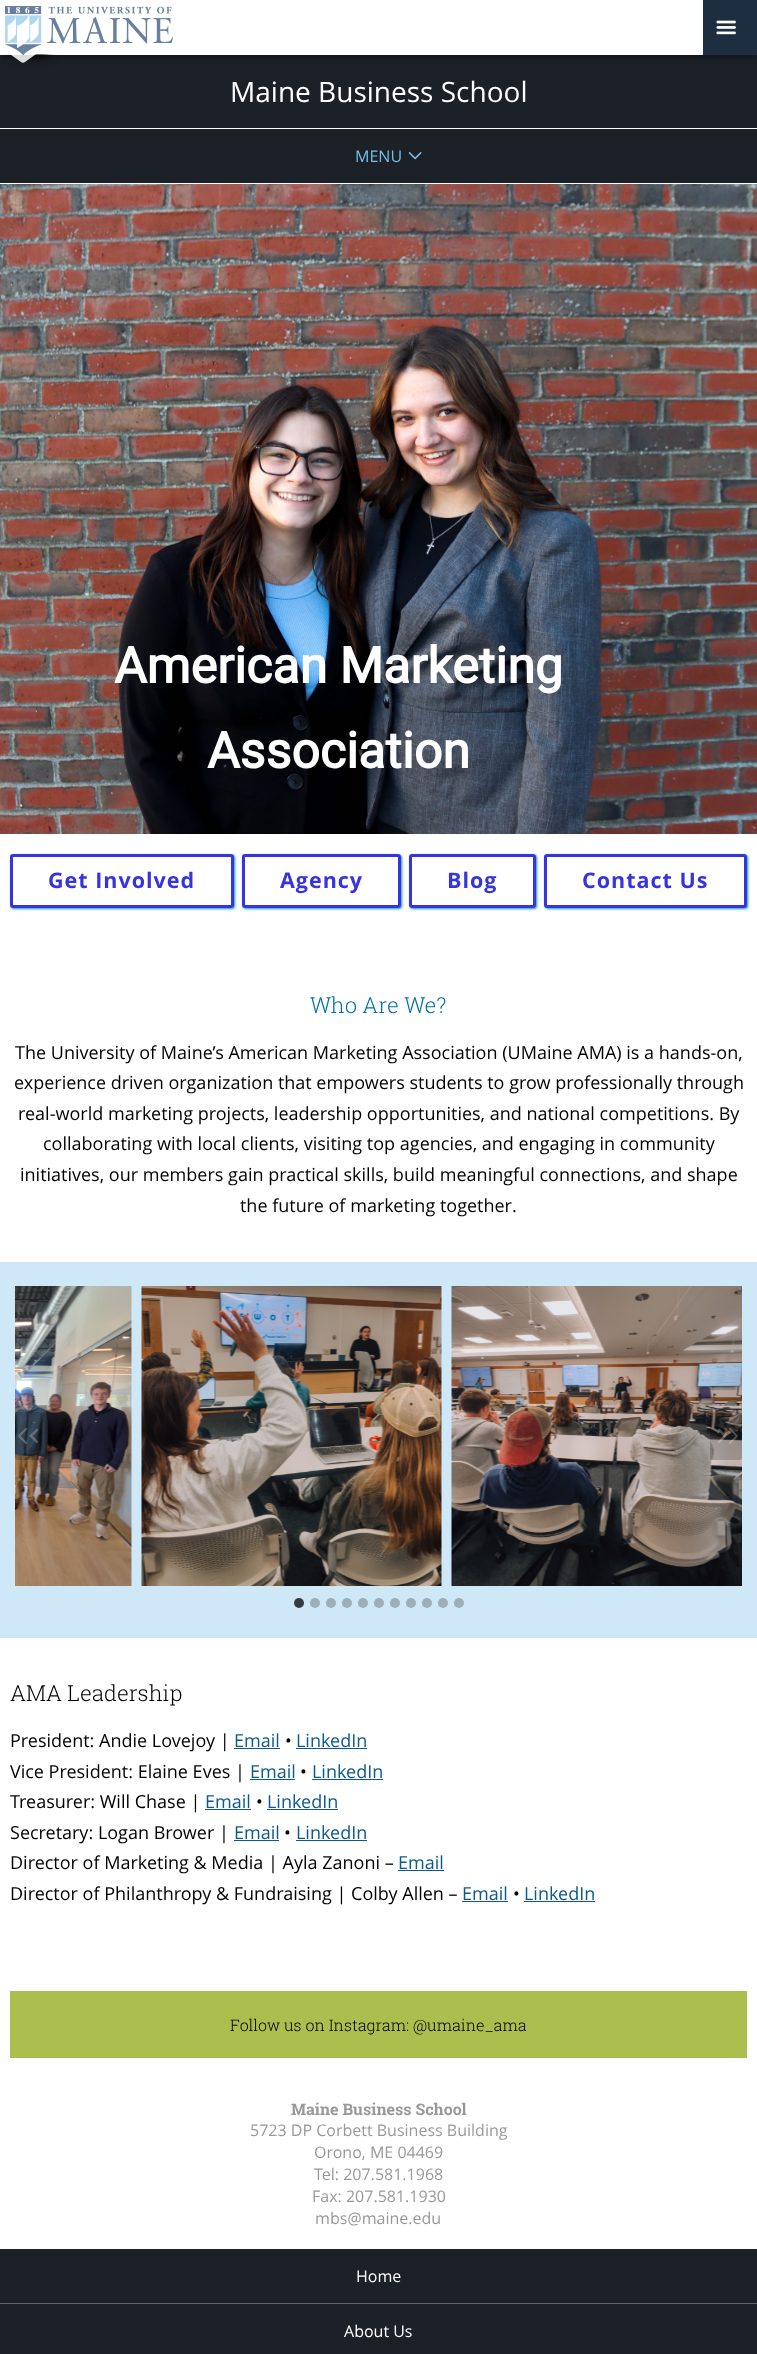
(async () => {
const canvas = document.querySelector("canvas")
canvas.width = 757
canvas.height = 2354
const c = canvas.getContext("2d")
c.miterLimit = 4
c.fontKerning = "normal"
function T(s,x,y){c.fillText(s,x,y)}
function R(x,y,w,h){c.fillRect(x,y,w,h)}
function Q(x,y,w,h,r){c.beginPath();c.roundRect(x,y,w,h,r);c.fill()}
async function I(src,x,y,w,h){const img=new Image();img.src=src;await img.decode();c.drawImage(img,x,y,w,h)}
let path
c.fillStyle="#fff"
R(0,0,757,2354)
c.fillStyle="#1c2128"
R(0,55,757,128)
c.fillStyle="#00000059"
c.filter="blur(2.5px)"
c.beginPath()
c.rect(0,3,757,55)
c.fill()
c.filter="none"
c.fillStyle="#fff"
R(0,0,703,55)
c.save()
path = new Path2D("M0 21h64v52h-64zm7 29l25.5-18c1-.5 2.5-.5 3.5 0l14 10c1 .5 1 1.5 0 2l-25.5 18c-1 .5-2.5 .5-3.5 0l-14-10c-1-.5-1-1.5 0-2z")
c.clip(path,"evenodd")
c.fillStyle="#000000d9"
c.filter="blur(5px)"
c.beginPath()
c.roundRect(13,37,35,20,2)
c.fill()
c.filter="none"
c.restore()
c.fillStyle="#ffffffd9"
path = new Path2D("M7 50l25-18c1-1 3-1 4 0l14 10c1 1 1 2 0 2l-25 18c-1 1-3 1-4 0l-14-10c-1-1-1-2 0-2z")
c.fill(path)
c.fillStyle="#fff"
R(2,26,57,28)
await I("1.png",5,6,168,49)
c.fillStyle="#1c2e3f"
R(703,0,54,55)
await I("2.png",716,20,20,15)
c.font="28px Open Sans"
c.fillStyle="#fff"
T("Maine Business School",230,102)
R(0,128,757,1)
c.font="16px Open Sans"
c.fillStyle="#79bce7"
T("MENU",355,162)
await I("3.png",408,152,14,8)
await I("4.png",0,184,757,650)
c.font="bold 50px Roboto"
c.fillStyle="#fff"
T("American Marketing",114,683)
T("Association",207,768)
c.save()
path = new Path2D("M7 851h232v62h-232zm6 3h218c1.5 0 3 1.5 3 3v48c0 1.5-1.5 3-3 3h-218c-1.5 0-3-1.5-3-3v-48c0-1.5 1.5-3 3-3z")
c.clip(path,"evenodd")
c.fillStyle="#0693e3"
c.filter="blur(1px)"
c.beginPath()
c.roundRect(11,855,224,54,3)
c.fill()
c.filter="none"
c.restore()
c.beginPath()
c.roundRect(11.5,855.5,221,51,1.5)
c.strokeStyle="#3633e1"
c.lineWidth=3
c.stroke()
c.letterSpacing="1px"
c.font="bold 21.5px Open Sans"
c.fillStyle="#3633e1"
T("Get Involved",48,888)
c.save()
path = new Path2D("M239 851h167v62h-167zm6 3h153c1.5 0 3 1.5 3 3v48c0 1.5-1.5 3-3 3h-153c-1.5 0-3-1.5-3-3v-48c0-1.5 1.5-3 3-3z")
c.clip(path,"evenodd")
c.fillStyle="#0693e3"
c.filter="blur(1px)"
c.beginPath()
c.roundRect(243,855,159,54,3)
c.fill()
c.filter="none"
c.restore()
c.beginPath()
c.roundRect(243.5,855.5,156,51,1.5)
c.stroke()
T("Agency",280,888)
c.save()
path = new Path2D("M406 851h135v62h-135zm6 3h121c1.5 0 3 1.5 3 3v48c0 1.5-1.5 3-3 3h-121c-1.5 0-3-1.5-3-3v-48c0-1.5 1.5-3 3-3z")
c.clip(path,"evenodd")
c.fillStyle="#0693e3"
c.filter="blur(1px)"
c.beginPath()
c.roundRect(410,855,127,54,3)
c.fill()
c.filter="none"
c.restore()
c.beginPath()
c.roundRect(410.5,855.5,124,51,1.5)
c.stroke()
T("Blog",447,888)
c.save()
path = new Path2D("M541 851h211v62h-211zm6 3h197c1.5 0 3 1.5 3 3v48c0 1.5-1.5 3-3 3h-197c-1.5 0-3-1.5-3-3v-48c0-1.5 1.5-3 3-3z")
c.clip(path,"evenodd")
c.fillStyle="#0693e3"
c.filter="blur(1px)"
c.beginPath()
c.roundRect(545,855,203,54,3)
c.fill()
c.filter="none"
c.restore()
c.beginPath()
c.roundRect(545.5,855.5,200,51,1.5)
c.stroke()
T("Contact Us",582,888)
c.letterSpacing="0px"
c.font="300 22px Roboto Slab"
c.fillStyle="#0071a5"
T("Who Are We?",310,1013)
c.font="18px Open Sans"
c.fillStyle="#000"
T("The University of Maine’s American Marketing Association (UMaine AMA) is a hands-on,",15,1059)
T("experience driven organization that empowers students to grow professionally through",14,1089)
T("real-world marketing projects, leadership opportunities, and national competitions. By",18,1120)
T("collaborating with local clients, visiting top agencies, and engaging in community",43,1150)
T("initiatives, our members gain practical skills, build meaningful connections, and shape",20,1181)
T("the future of marketing together.",240,1212)
c.fillStyle="#cfe8f7"
R(0,1262,757,376)
await I("5.png",15,1286,117,300)
await I("6.png",141,1286,301,300)
await I("7.png",451,1286,291,300)
c.fillStyle="#00000033"
Q(15,1412,32,48,3)
await I("8.png",18,1428,9,16)
await I("9.png",29,1428,10,16)
Q(710,1412,32,48,3)
await I("10.png",717,1428,10,16)
await I("11.png",729,1428,9,16)
c.fillStyle="#343a3e"
c.beginPath()
c.arc(299,1603,5,0,7)
c.fill()
c.fillStyle="#9baeb9"
c.beginPath()
c.arc(315,1603,5,0,7)
c.fill()
c.beginPath()
c.arc(331,1603,5,0,7)
c.fill()
c.beginPath()
c.arc(347,1603,5,0,7)
c.fill()
c.beginPath()
c.arc(363,1603,5,0,7)
c.fill()
c.beginPath()
c.arc(379,1603,5,0,7)
c.fill()
c.beginPath()
c.arc(395,1603,5,0,7)
c.fill()
c.beginPath()
c.arc(411,1603,5,0,7)
c.fill()
c.beginPath()
c.arc(427,1603,5,0,7)
c.fill()
c.beginPath()
c.arc(443,1603,5,0,7)
c.fill()
c.beginPath()
c.arc(459,1603,5,0,7)
c.fill()
c.font="300 22px Roboto Slab"
c.fillStyle="#000"
T("AMA Leadership",10,1701)
c.font="18px Open Sans"
T("President: Andie Lovejoy |",10,1747)
c.fillStyle="#0c598e"
T("Email",234,1747)
R(234,1748,46,1)
c.fillStyle="#000"
T("•",285,1747)
c.fillStyle="#0c598e"
T("LinkedIn",296,1747)
R(296,1748,71,1)
c.fillStyle="#000"
T("Vice President: Elaine Eves |",10,1778)
c.fillStyle="#0c598e"
T("Email",250,1778)
R(250,1779,45,1)
c.fillStyle="#000"
T("•",300,1778)
c.fillStyle="#0c598e"
T("LinkedIn",312,1778)
R(312,1779,71,1)
c.fillStyle="#000"
T("Treasurer: Will Chase |",10,1808)
c.fillStyle="#0c598e"
T("Email",205,1808)
R(205,1809,46,1)
c.fillStyle="#000"
T("•",256,1808)
c.fillStyle="#0c598e"
T("LinkedIn",267,1808)
R(267,1809,71,1)
c.fillStyle="#000"
T("Secretary: Logan Brower |",10,1839)
c.fillStyle="#0c598e"
T("Email",234,1839)
R(234,1840,45,1)
c.fillStyle="#000"
T("•",284,1839)
c.fillStyle="#0c598e"
T("LinkedIn",296,1839)
R(296,1840,71,1)
c.fillStyle="#000"
T("Director of Marketing & Media | Ayla Zanoni –",10,1869)
c.fillStyle="#0c598e"
T("Email",398,1869)
R(398,1870,46,1)
c.fillStyle="#000"
T("Director of Philanthropy & Fundraising | Colby Allen –",10,1900)
c.fillStyle="#0c598e"
T("Email",462,1900)
R(462,1901,46,1)
c.fillStyle="#000"
T("•",513,1900)
c.fillStyle="#0c598e"
T("LinkedIn",524,1900)
R(524,1901,71,1)
c.fillStyle="#acbe4e"
R(10,1991,737,67)
c.font="300 16px Roboto Slab"
c.fillStyle="#000"
T("Follow us on Instagram: @umaine_ama",230,2031)
c.font="bold 16px Roboto Slab"
c.fillStyle="#999"
T("Maine Business School",291,2115)
c.font="16px Open Sans"
T("5723 DP Corbett Business Building",250,2136)
T("Orono, ME 04469",314,2158)
T("Tel: 207.581.1968",314,2180)
T("Fax: 207.581.1930",312,2202)
T("mbs@maine.edu",315,2224)
c.fillStyle="#1c2128"
R(0,2249,757,105)
c.fillStyle="#606469"
R(0,2303,757,1)
c.fillStyle="#fff"
T("Home",356,2282)
T("About Us",344,2337)
})()
